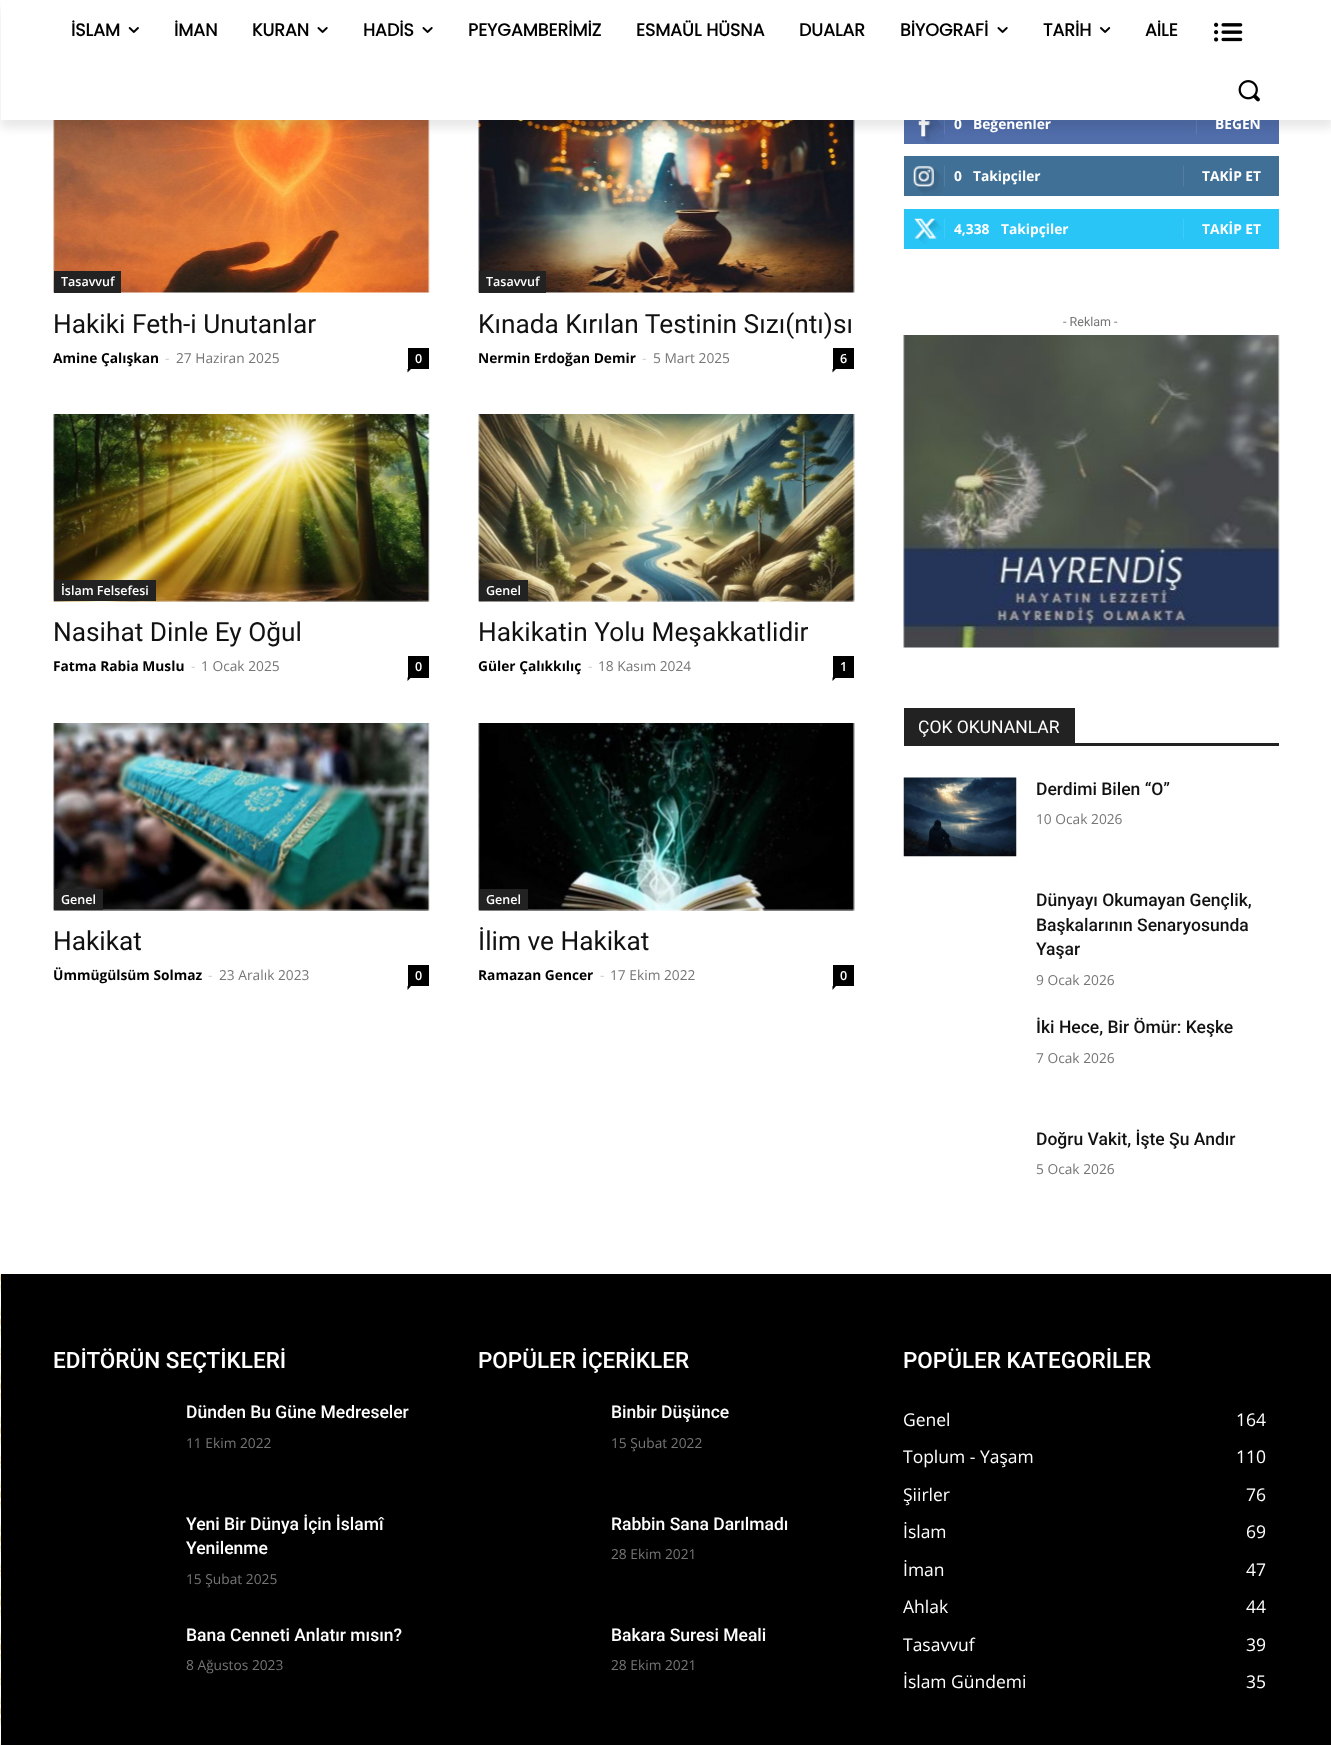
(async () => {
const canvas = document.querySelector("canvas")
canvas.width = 1331
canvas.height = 1745
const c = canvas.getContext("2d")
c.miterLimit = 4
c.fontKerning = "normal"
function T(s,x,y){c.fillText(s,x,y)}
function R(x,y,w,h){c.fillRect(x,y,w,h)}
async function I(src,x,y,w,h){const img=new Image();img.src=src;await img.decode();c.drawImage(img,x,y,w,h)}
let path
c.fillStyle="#fff"
R(0,0,1331,1745)
await I("1.png",0,1274,1,471)
c.fillStyle="#516eab"
R(904,120,375,24)
c.fillStyle="#627db3"
R(944,114,1,20)
R(1196,114,1,20)
c.fillStyle="#fff"
R(944,114,253,6)
await I("7.png",53,120,377,173)
await I("8.png",478,120,377,173)
await I("13.png",918,120,26,23)
c.save()
path = new Path2D("M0 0h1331v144h-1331zm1 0h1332v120h-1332z")
c.clip(path,"evenodd")
c.fillStyle="#00000017"
c.filter="blur(5px)"
c.beginPath()
c.rect(1,8,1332,120)
c.fill()
c.filter="none"
c.restore()
c.font="bold 17.5px Poppins"
c.fillStyle="#000"
T("İSLAM",71,36)
await I("2.png",128,27,11,6)
T("İMAN",174,36)
T("KURAN",252,36)
await I("3.png",317,27,11,6)
T("HADİS",363,36)
await I("3.png",422,27,11,6)
T("PEYGAMBERİMİZ",468,36)
T("ESMAÜL HÜSNA",636,36)
T("DUALAR",799,36)
T("BİYOGRAFİ",900,36)
await I("3.png",997,27,11,6)
T("TARİH",1043,36)
await I("4.png",1100,27,11,6)
T("AİLE",1145,36)
await I("5.png",1214,22,29,20)
await I("6.png",1238,80,22,22)
c.fillStyle="#222"
R(54,271,67,22)
c.font="600 12.5px Open Sans"
c.fillStyle="#fff"
T("Tasavvuf",61,286)
c.font="26.25px Roboto"
c.fillStyle="#111"
T("Hakiki Feth-i Unutanlar",53,333)
c.font="bold 13.75px Open Sans"
c.fillStyle="#000"
T("Amine Çalışkan",53,363)
c.font="13.75px Open Sans"
c.fillStyle="#ccc"
T("-",165,363)
c.fillStyle="#767676"
T("27 Haziran 2025",176,363)
c.fillStyle="#000"
R(408,348,21,21)
c.font="600 12.5px Open Sans"
c.fillStyle="#fff"
T("0",415,363)
c.fillStyle="#000"
path = new Path2D("M407.5 369h3.5l-3.5 3.5z")
c.fill(path)
c.fillStyle="#222"
R(479,271,67,22)
c.fillStyle="#fff"
T("Tasavvuf",486,286)
c.font="26.25px Roboto"
c.fillStyle="#111"
T("Kınada Kırılan Testinin Sızı(ntı)sı",478,333)
c.font="bold 13.75px Open Sans"
c.fillStyle="#000"
T("Nermin Erdoğan Demir",478,363)
c.font="13.75px Open Sans"
c.fillStyle="#ccc"
T("-",642,363)
c.fillStyle="#767676"
T("5 Mart 2025",653,363)
c.fillStyle="#000"
R(833,348,21,21)
c.font="600 12.5px Open Sans"
c.fillStyle="#fff"
T("6",840,363)
c.fillStyle="#000"
path = new Path2D("M832.5 369h3.5l-3.5 3.5z")
c.fill(path)
await I("9.png",53,414,377,188)
c.fillStyle="#222"
R(54,580,102,21)
c.fillStyle="#fff"
T("İslam Felsefesi",61,595)
c.font="26.25px Roboto"
c.fillStyle="#111"
T("Nasihat Dinle Ey Oğul",53,641)
c.font="bold 13.75px Open Sans"
c.fillStyle="#000"
T("Fatma Rabia Muslu",53,671)
c.font="13.75px Open Sans"
c.fillStyle="#ccc"
T("-",191,671)
c.fillStyle="#767676"
T("1 Ocak 2025",201,671)
c.fillStyle="#000"
R(408,656,21,22)
c.font="600 12.5px Open Sans"
c.fillStyle="#fff"
T("0",415,671)
c.fillStyle="#000"
path = new Path2D("M407.5 677.5h3.5l-3.5 3.5z")
c.fill(path)
await I("10.png",478,414,377,188)
c.fillStyle="#222"
R(479,580,49,21)
c.fillStyle="#fff"
T("Genel",486,595)
c.font="26.25px Roboto"
c.fillStyle="#111"
T("Hakikatin Yolu Meşakkatlidir",478,641)
c.font="bold 13.75px Open Sans"
c.fillStyle="#000"
T("Güler Çalıkkılıç",478,671)
c.font="13.75px Open Sans"
c.fillStyle="#ccc"
T("-",588,671)
c.fillStyle="#767676"
T("18 Kasım 2024",598,671)
c.fillStyle="#000"
R(833,656,21,22)
c.font="600 12.5px Open Sans"
c.fillStyle="#fff"
T("1",840,671)
c.fillStyle="#000"
path = new Path2D("M832.5 677.5h3.5l-3.5 3.5z")
c.fill(path)
await I("11.png",53,723,377,188)
c.fillStyle="#222"
R(54,889,49,21)
c.fillStyle="#fff"
T("Genel",61,904)
c.font="26.25px Roboto"
c.fillStyle="#111"
T("Hakikat",53,950)
c.font="bold 13.75px Open Sans"
c.fillStyle="#000"
T("Ümmügülsüm Solmaz",53,980)
c.font="13.75px Open Sans"
c.fillStyle="#ccc"
T("-",208,980)
c.fillStyle="#767676"
T("23 Aralık 2023",219,980)
c.fillStyle="#000"
R(408,965,21,21)
c.font="600 12.5px Open Sans"
c.fillStyle="#fff"
T("0",415,980)
c.fillStyle="#000"
path = new Path2D("M407.5 986h3.5l-3.5 4z")
c.fill(path)
await I("12.png",478,723,377,188)
c.fillStyle="#222"
R(479,889,49,21)
c.fillStyle="#fff"
T("Genel",486,904)
c.font="26.25px Roboto"
c.fillStyle="#111"
T("İlim ve Hakikat",478,950)
c.font="bold 13.75px Open Sans"
c.fillStyle="#000"
T("Ramazan Gencer",478,980)
c.font="13.75px Open Sans"
c.fillStyle="#ccc"
T("-",600,980)
c.fillStyle="#767676"
T("17 Ekim 2022",610,980)
c.fillStyle="#000"
R(833,965,21,21)
c.font="600 12.5px Open Sans"
c.fillStyle="#fff"
T("0",840,980)
c.fillStyle="#000"
path = new Path2D("M832.5 986h3.5l-3.5 4z")
c.fill(path)
c.font="bold 13.75px Open Sans"
c.fillStyle="#fff"
T("0",954,129)
T("Beğenenler",973,129)
T("BEĞEN",1215,129)
c.fillStyle="#417096"
R(904,156,375,40)
await I("14.png",913,166,30,29)
c.fillStyle="#547ea1"
R(944,166,1,20)
c.fillStyle="#fff"
T("0",954,181)
T("Takipçiler",973,181)
c.fillStyle="#547ea1"
R(1183,166,1,20)
c.fillStyle="#fff"
T("TAKİP ET",1202,181)
c.fillStyle="#29c5f6"
R(904,209,375,40)
await I("15.png",913,218,29,26)
c.fillStyle="#3ecbf7"
R(944,219,1,20)
c.fillStyle="#fff"
T("4,338",954,234)
T("Takipçiler",1001,234)
c.fillStyle="#3ecbf7"
R(1183,219,1,20)
c.fillStyle="#fff"
T("TAKİP ET",1202,234)
c.font="12.5px Roboto"
c.fillStyle="#767676"
T("- Reklam -",1063,326)
await I("16.png",903,335,377,313)
c.fillStyle="#222"
R(904,743,375,3)
R(904,708,171,35)
c.font="17.5px Roboto"
c.fillStyle="#fff"
T("ÇOK OKUNANLAR",918,733)
await I("17.png",903,777,114,80)
c.font="500 17.5px Roboto"
c.fillStyle="#111"
T("Derdimi Bilen “O”",1036,795)
c.font="13.75px Open Sans"
c.fillStyle="#767676"
T("10 Ocak 2026",1036,824)
c.font="500 17.5px Roboto"
c.fillStyle="#111"
T("Dünyayı Okumayan Gençlik,",1036,906)
T("Başkalarının Senaryosunda",1036,931)
T("Yaşar",1036,955)
c.font="13.75px Open Sans"
c.fillStyle="#767676"
T("9 Ocak 2026",1036,985)
c.font="500 17.5px Roboto"
c.fillStyle="#111"
T("İki Hece, Bir Ömür: Keşke",1036,1033)
c.font="13.75px Open Sans"
c.fillStyle="#767676"
T("7 Ocak 2026",1036,1063)
c.font="500 17.5px Roboto"
c.fillStyle="#111"
T("Doğru Vakit, İşte Şu Andır",1036,1145)
c.font="13.75px Open Sans"
c.fillStyle="#767676"
T("5 Ocak 2026",1036,1174)
c.fillStyle="#000"
R(1,1274,1330,471)
c.font="500 22.5px Roboto"
c.fillStyle="#fff"
T("EDİTÖRÜN SEÇTİKLERİ",53,1368)
c.font="500 17.5px Roboto"
T("Dünden Bu Güne Medreseler",186,1418)
c.font="13.75px Open Sans"
c.fillStyle="#767676"
T("11 Ekim 2022",186,1448)
c.font="500 17.5px Roboto"
c.fillStyle="#fff"
T("Yeni Bir Dünya İçin İslamî",186,1530)
T("Yenilenme",186,1554)
c.font="13.75px Open Sans"
c.fillStyle="#767676"
T("15 Şubat 2025",186,1584)
c.font="500 17.5px Roboto"
c.fillStyle="#fff"
T("Bana Cenneti Anlatır mısın?",186,1641)
c.font="13.75px Open Sans"
c.fillStyle="#767676"
T("8 Ağustos 2023",186,1670)
c.font="500 22.5px Roboto"
c.fillStyle="#fff"
T("POPÜLER İÇERİKLER",478,1368)
c.font="500 17.5px Roboto"
T("Binbir Düşünce",611,1418)
c.font="13.75px Open Sans"
c.fillStyle="#767676"
T("15 Şubat 2022",611,1448)
c.font="500 17.5px Roboto"
c.fillStyle="#fff"
T("Rabbin Sana Darılmadı",611,1530)
c.font="13.75px Open Sans"
c.fillStyle="#767676"
T("28 Ekim 2021",611,1559)
c.font="500 17.5px Roboto"
c.fillStyle="#fff"
T("Bakara Suresi Meali",611,1641)
c.font="13.75px Open Sans"
c.fillStyle="#767676"
T("28 Ekim 2021",611,1670)
c.font="500 22.5px Roboto"
c.fillStyle="#fff"
T("POPÜLER KATEGORİLER",903,1368)
c.font="17.5px Open Sans"
T("Genel",903,1426)
T("164",1236,1426)
T("Toplum - Yaşam",903,1463)
T("110",1236,1463)
T("Şiirler",903,1501)
T("76",1246,1501)
T("İslam",903,1538)
T("69",1246,1538)
T("İman",903,1576)
T("47",1246,1576)
T("Ahlak",903,1613)
T("44",1246,1613)
T("Tasavvuf",903,1651)
T("39",1246,1651)
T("İslam Gündemi",903,1688)
T("35",1246,1688)
})()
